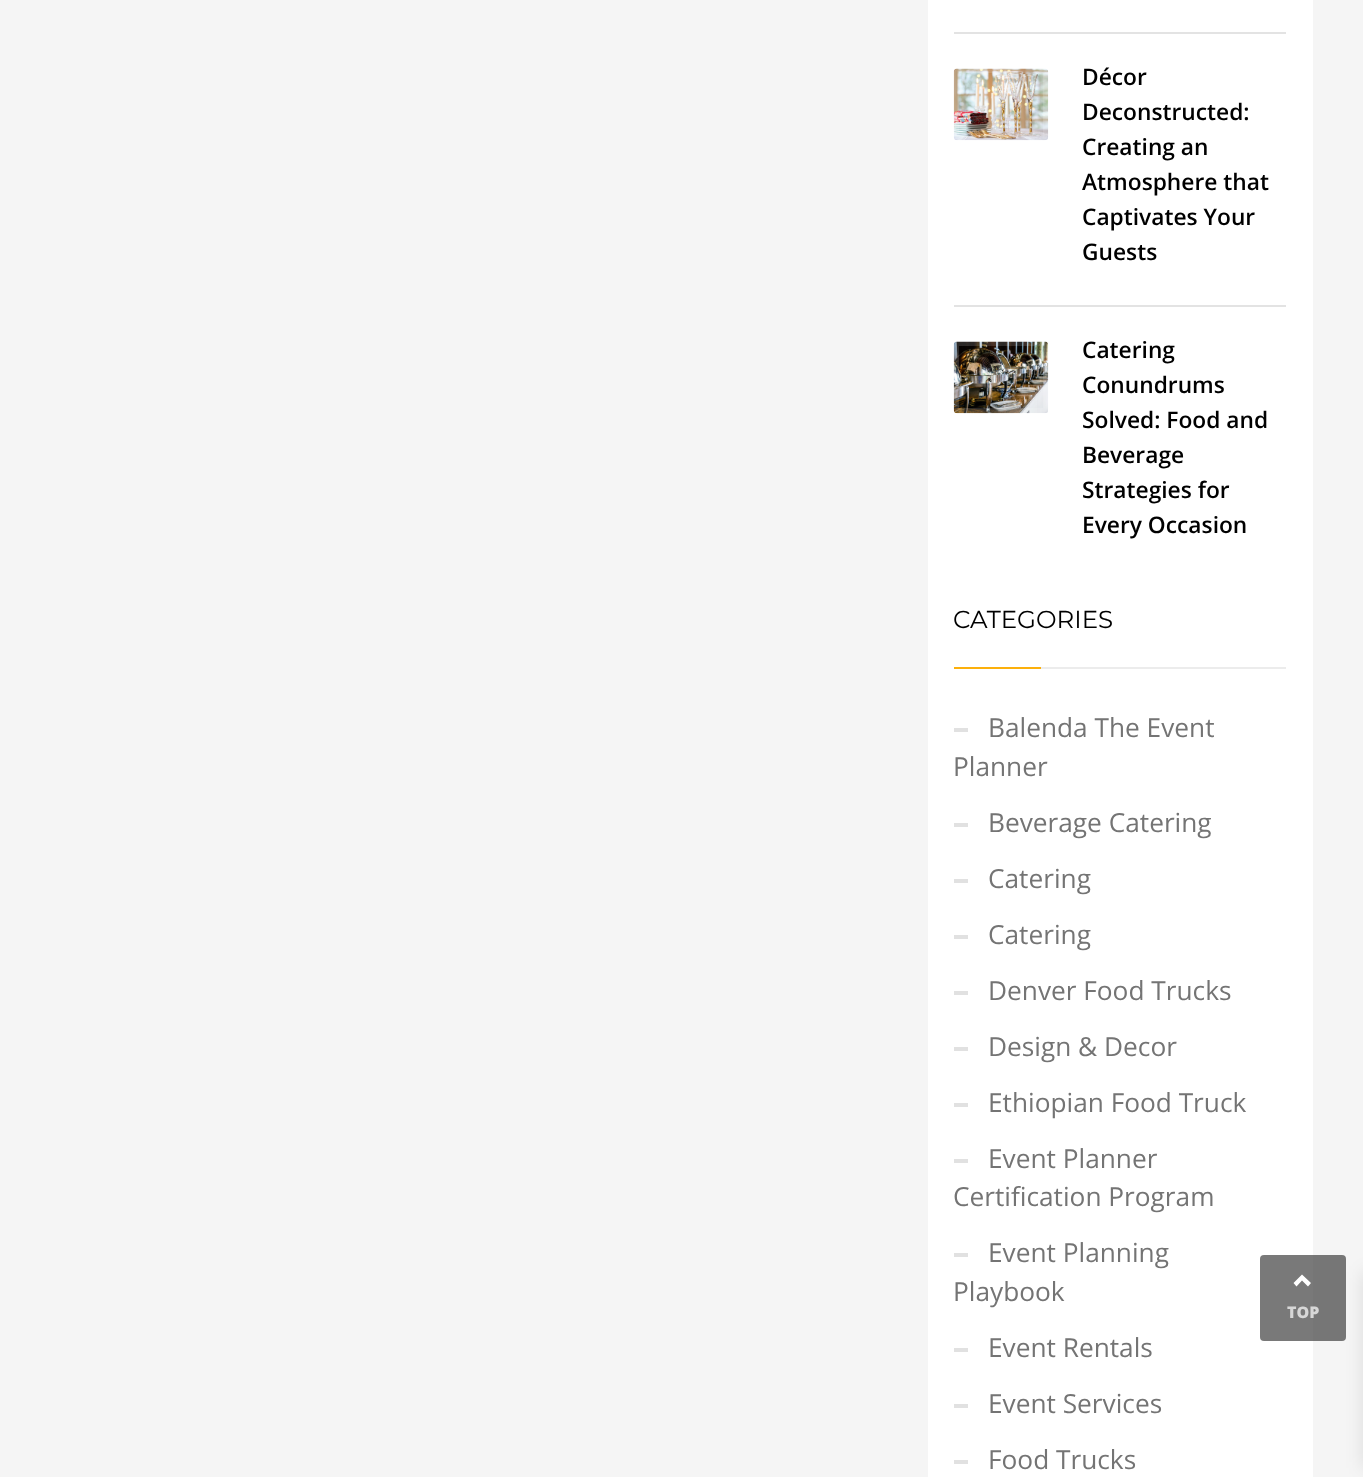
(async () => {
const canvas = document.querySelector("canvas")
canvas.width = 1363
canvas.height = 1477
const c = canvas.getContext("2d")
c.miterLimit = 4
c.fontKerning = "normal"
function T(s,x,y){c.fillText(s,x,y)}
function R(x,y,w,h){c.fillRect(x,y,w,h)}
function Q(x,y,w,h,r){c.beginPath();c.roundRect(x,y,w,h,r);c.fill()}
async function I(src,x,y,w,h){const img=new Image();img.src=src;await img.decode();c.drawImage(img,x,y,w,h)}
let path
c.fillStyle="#f5f5f5"
R(0,0,1363,1477)
c.fillStyle="#fff"
R(928,0,385,1477)
c.fillStyle="#e3e3e3"
R(954,32,332,2)
R(954,305,332,2)
await I("1.png",953,68,96,73)
c.beginPath()
c.roundRect(956.5,70.5,89,67,2.5)
c.strokeStyle="#ffffff26"
c.lineWidth=5
c.stroke()
c.font="600 22.75px Open Sans"
c.fillStyle="#000"
T("Décor",1082,85)
T("Deconstructed:",1082,120)
T("Creating an",1082,155)
T("Atmosphere that",1082,190)
T("Captivates Your",1082,225)
T("Guests",1082,260)
await I("2.png",953,341,96,73)
c.beginPath()
c.roundRect(956.5,343.5,89,67,2.5)
c.stroke()
T("Catering",1082,358)
T("Conundrums",1082,393)
T("Solved: Food and",1082,428)
T("Beverage",1082,463)
T("Strategies for",1082,498)
T("Every Occasion",1082,533)
c.font="24.5px Montserrat"
T("CATEGORIES",953,628)
c.fillStyle="#fcb00c"
R(954,667,87,2)
c.fillStyle="#ececec"
R(1041,667,245,2)
c.fillStyle="#e1e1e1"
R(954,728,14,4)
c.font="26.25px Open Sans"
c.fillStyle="#747474"
T("Balenda The Event",988,737)
T("Planner",953,776)
c.fillStyle="#e1e1e1"
R(954,823,14,4)
c.fillStyle="#747474"
T("Beverage Catering",988,832)
c.fillStyle="#e1e1e1"
R(954,879,14,4)
c.fillStyle="#747474"
T("Catering",988,888)
c.fillStyle="#e1e1e1"
R(954,935,14,4)
c.fillStyle="#747474"
T("Catering",988,944)
c.fillStyle="#e1e1e1"
R(954,991,14,4)
c.fillStyle="#747474"
T("Denver Food Trucks",988,1000)
c.fillStyle="#e1e1e1"
R(954,1047,14,4)
c.fillStyle="#747474"
T("Design & Decor",988,1056)
c.fillStyle="#e1e1e1"
R(954,1103,14,4)
c.fillStyle="#747474"
T("Ethiopian Food Truck",988,1112)
c.fillStyle="#e1e1e1"
R(954,1159,14,4)
c.fillStyle="#747474"
T("Event Planner",988,1168)
T("Certification Program",953,1206)
c.fillStyle="#e1e1e1"
R(954,1253,14,4)
c.fillStyle="#747474"
T("Event Planning",988,1262)
T("Playbook",953,1301)
c.fillStyle="#e1e1e1"
R(954,1348,14,4)
c.fillStyle="#747474"
T("Event Rentals",988,1357)
c.fillStyle="#e1e1e1"
R(954,1404,14,4)
c.fillStyle="#747474"
T("Event Services",988,1413)
c.fillStyle="#e1e1e1"
R(954,1460,14,4)
c.fillStyle="#747474"
T("Food Trucks",988,1469)
c.fillStyle="#404040b3"
Q(1260,1255,86,86,4)
c.fillStyle="#fff"
path = new Path2D("M1302 1274.5l9 8.5l-3 3.5l-6-6l-5.5 6l-3-3.5z")
c.fill(path)
c.font="800 16px Open Sans"
c.fillStyle="#d7d7d7"
T("TOP",1287,1318)
c.fillStyle="#0000001a"
c.filter="blur(9px)"
c.beginPath()
c.rect(1363,1272,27,196)
c.fill()
c.filter="none"
})()
